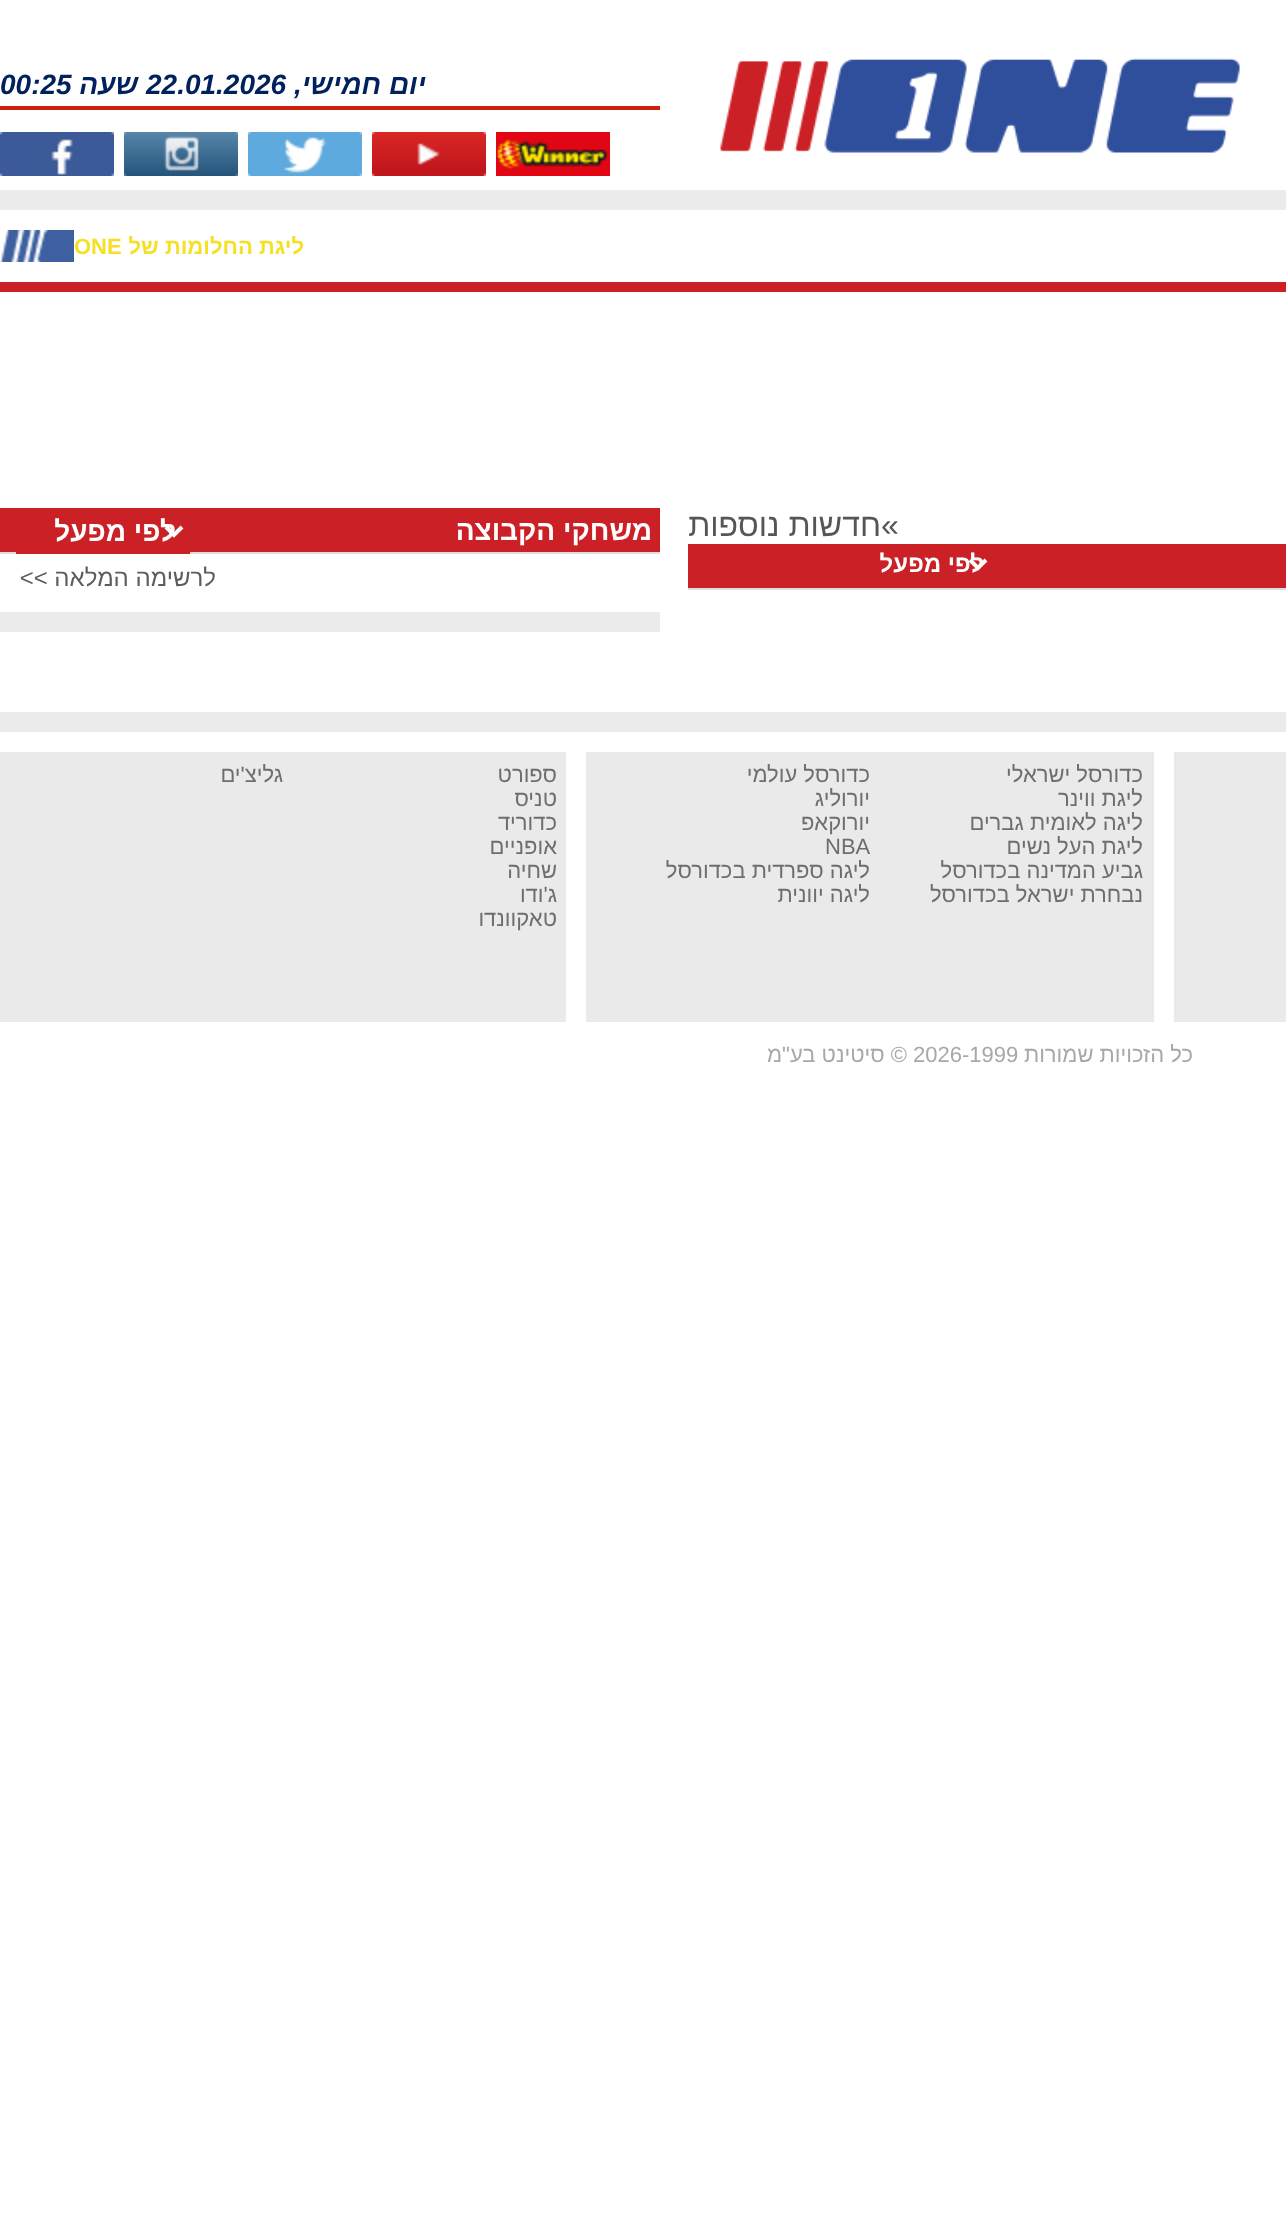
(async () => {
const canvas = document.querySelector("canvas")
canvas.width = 1286
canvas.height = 2225
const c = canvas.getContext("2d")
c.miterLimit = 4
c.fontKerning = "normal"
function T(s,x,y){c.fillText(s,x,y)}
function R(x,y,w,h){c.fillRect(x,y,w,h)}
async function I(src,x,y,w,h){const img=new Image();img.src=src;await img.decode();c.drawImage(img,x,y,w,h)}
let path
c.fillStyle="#fff"
R(0,0,1286,2225)
await I("1.png",720,58,521,95)
c.fillStyle="#cb200c"
R(0,106,660,4)
c.direction="rtl"
c.font="italic bold 28px Liberation Sans"
c.fillStyle="#00215e"
T("יום חמישי,",426,94)
c.direction="ltr"
T("22.01.2026",146,94)
c.direction="rtl"
T("שעה",138,94)
c.direction="ltr"
T("00:25",0,94)
await I("2.png",496,132,114,44)
await I("3.png",372,132,114,44)
await I("4.png",248,132,114,44)
await I("5.png",124,132,114,44)
await I("6.png",0,132,114,44)
c.fillStyle="#ebebeb"
R(0,190,1286,20)
c.direction="rtl"
c.font="bold 22px Liberation Sans"
c.fillStyle="#f5e027"
T("ליגת החלומות של",304,254)
c.direction="ltr"
T("ONE",74,254)
await I("7.png",0,230,74,32)
c.fillStyle="#cc2027"
R(0,282,1286,10)
c.font="32px Liberation Sans"
c.fillStyle="#565656"
T("«",881,536)
c.direction="rtl"
T("חדשות נוספות",881,536)
c.fillStyle="#cc2027"
R(688,544,598,44)
path = new Path2D("M970 560l8 8l8-8")
c.strokeStyle="#fff"
c.lineWidth=4
c.stroke(path)
c.font="bold 24px Liberation Sans"
c.fillStyle="#fff"
T("לפי מפעל",984,572)
c.fillStyle="#ddd"
R(688,588,598,2)
c.fillStyle="#cc2027"
R(0,508,660,44)
c.font="bold 28px Liberation Sans"
c.fillStyle="#fff"
T("משחקי הקבוצה",652,540)
c.fillStyle="#ddd"
R(0,552,660,2)
c.fillStyle="#cc2027"
R(16,552,174,2)
path = new Path2D("M166 527l8 8l8-8")
c.stroke(path)
c.fillStyle="#fff"
T("לפי מפעל",176,541)
c.font="24px Liberation Sans"
c.fillStyle="#5c5c5c"
T("לרשימה המלאה >>",216,586)
c.fillStyle="#ebebeb"
R(0,612,660,20)
R(0,712,1286,20)
c.fillStyle="#eaeaea"
R(1174,752,112,270)
R(586,752,568,270)
c.font="22px Liberation Sans"
c.fillStyle="#6e6e6e"
T("כדורסל ישראלי",1143,782)
T("ליגת ווינר",1143,806)
T("ליגה לאומית גברים",1143,830)
T("ליגת העל נשים",1143,854)
T("גביע המדינה בכדורסל",1143,878)
T("נבחרת ישראל בכדורסל",1143,902)
T("כדורסל עולמי",870,782)
T("יורוליג",870,806)
T("יורוקאפ",870,830)
c.direction="ltr"
T("NBA",825,854)
c.direction="rtl"
T("ליגה ספרדית בכדורסל",870,878)
T("ליגה יוונית",870,902)
c.fillStyle="#eaeaea"
R(0,752,566,270)
c.fillStyle="#6e6e6e"
T("ספורט",557,782)
T("טניס",557,806)
T("כדוריד",557,830)
T("אופניים",557,854)
T("שחיה",557,878)
T("ג'ודו",557,902)
T("טאקוונדו",557,926)
T("גליצ'ים",283,782)
c.fillStyle="#a8a8a8"
T("כל הזכויות שמורות",1193,1062)
c.direction="ltr"
T("2026-1999",913,1062)
c.direction="rtl"
T("© סיטינט בע\"מ",907,1062)
})()
